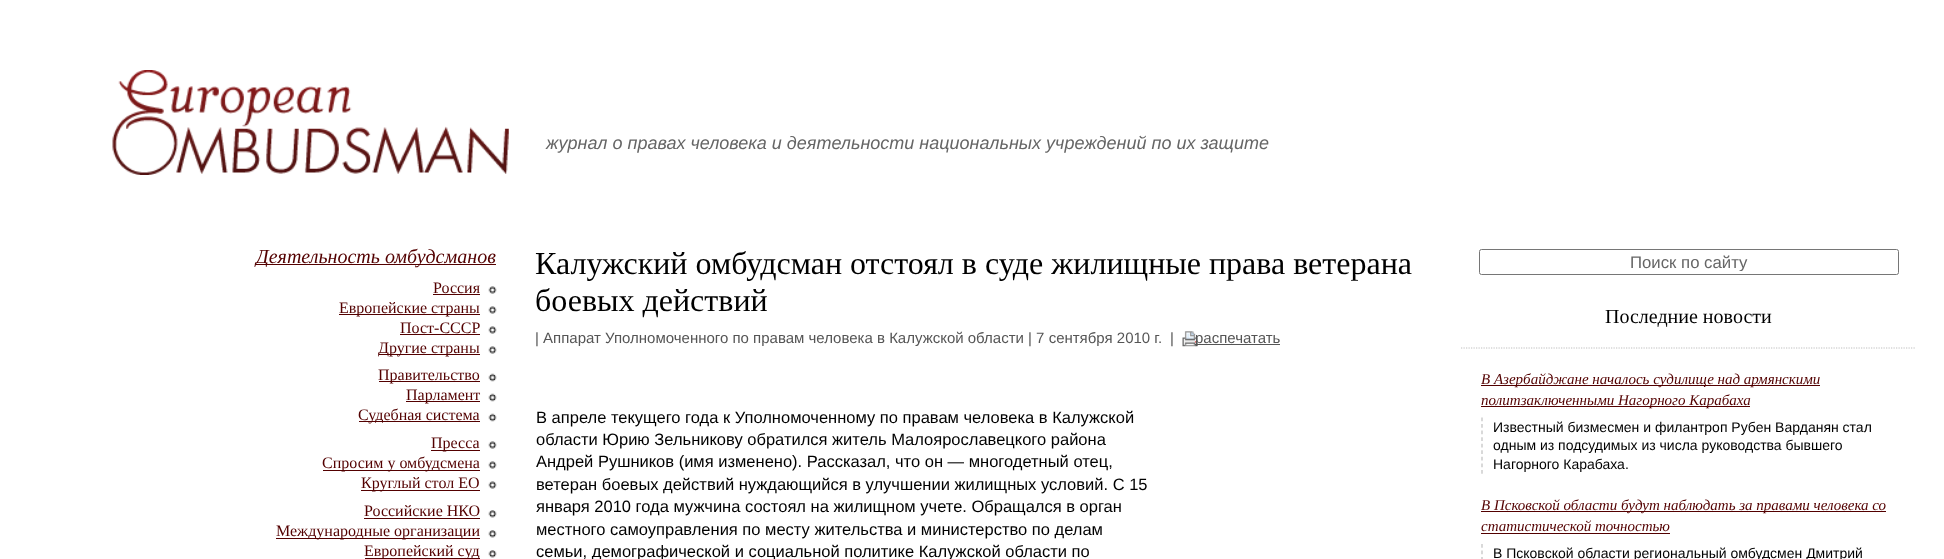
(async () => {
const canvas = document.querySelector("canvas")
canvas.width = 1944
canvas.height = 559
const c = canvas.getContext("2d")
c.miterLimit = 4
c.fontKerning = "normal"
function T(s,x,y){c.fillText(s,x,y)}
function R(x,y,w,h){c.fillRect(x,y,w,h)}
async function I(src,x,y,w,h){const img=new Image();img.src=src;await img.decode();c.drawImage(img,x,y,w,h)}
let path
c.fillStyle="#fff"
R(0,0,1944,559)
await I("1.png",112,70,397,105)
c.font="italic 18px Liberation Sans"
c.fillStyle="#666"
T("журнал о правах человека и деятельности национальных учреждений по их защите",546,149)
c.fillStyle="#530000"
R(256,264,240,1)
c.font="italic 20px Liberation Serif"
T("Деятельность омбудсманов",256,263)
await I("2.png",488,286,9,8)
c.font="16px Liberation Serif"
T("Россия",433,293)
R(433,294,47,1)
await I("2.png",488,306,9,8)
R(339,314,141,1)
T("Европейские страны",339,313)
await I("2.png",488,326,9,8)
T("Пост-СССР",400,333)
R(400,334,80,1)
await I("2.png",488,346,9,8)
R(379,354,101,1)
T("Другие страны",378,353)
await I("3.png",488,373,9,9)
R(379,381,101,1)
T("Правительство",378,380)
await I("3.png",488,393,9,9)
R(406,401,74,1)
T("Парламент",406,400)
await I("3.png",488,413,9,9)
R(359,421,121,1)
T("Судебная система",358,420)
await I("2.png",488,441,9,8)
R(431,450,49,1)
T("Пресса",431,448)
await I("2.png",488,461,9,8)
R(323,470,157,1)
T("Спросим у омбудсмена",322,468)
await I("2.png",488,481,9,8)
R(361,490,119,1)
T("Круглый стол ЕО",361,488)
await I("4.png",488,510,9,8)
T("Российские НКО",364,516)
R(364,518,116,1)
await I("4.png",488,530,9,8)
R(276,538,204,1)
T("Международные организации",276,536)
await I("4.png",488,550,9,8)
R(365,558,115,1)
T("Европейский суд",364,556)
c.font="32px Liberation Serif"
c.fillStyle="#000"
T("Калужский омбудсман отстоял в суде жилищные права ветерана",535,274)
T("боевых действий",535,311)
c.font="15px Liberation Sans"
c.fillStyle="#555"
T("| Аппарат Уполномоченного по правам человека в Калужской области | 7 сентября 2010 г.",535,343)
T("|",1170,343)
await I("5.png",1182,331,16,16)
R(1195,344,85,1)
T("распечатать",1195,343)
c.font="16.5px Liberation Sans"
c.fillStyle="#000"
T("В апреле текущего года к Уполномоченному по правам человека в Калужской",536,423)
T("области Юрию Зельникову обратился житель Малоярославецкого района",536,445)
T("Андрей Рушников (имя изменено). Рассказал, что он — многодетный отец,",536,467)
T("ветеран боевых действий нуждающийся в улучшении жилищных условий. С 15",536,490)
T("января 2010 года мужчина состоял на жилищном учете. Обращался в орган",536,512)
T("местного самоуправления по месту жительства и министерство по делам",536,535)
T("семьи, демографической и социальной политике Калужской области по",536,557)
c.beginPath()
c.roundRect(1479.5,249.5,419,25,2)
c.strokeStyle="#767676"
c.stroke()
c.save()
c.beginPath()
c.rect(1484,253,410,18)
c.clip()
c.font="16.75px Liberation Sans"
c.fillStyle="#666"
T("Поиск по сайту",1630,268)
c.restore()
path = new Path2D("M1461 348h455")
c.strokeStyle="#c0c0c0"
c.lineWidth=1.2
c.setLineDash([1.25,1.25])
c.stroke(path)
c.font="20px Liberation Serif"
T("Последние новости",1605,323)
c.fillStyle="#530000"
R(1481,385,339,1)
c.font="italic 15px Liberation Serif"
T("В Азербайджане началось судилище над армянскими",1481,384)
R(1481,406,269,1)
T("политзаключенными Нагорного Карабаха",1481,405)
path = new Path2D("M1482 417.5v56.5")
c.setLineDash([3.75,2.81])
c.stroke(path)
c.font="14px Liberation Sans"
c.fillStyle="#000"
T("Известный бизмесмен и филантроп Рубен Варданян стал",1493,432)
T("одным из подсудимых из числа руководства бывшего",1493,450)
T("Нагорного Карабаха.",1493,469)
c.fillStyle="#530000"
R(1481,511,405,1)
c.font="italic 15px Liberation Serif"
T("В Псковской области будут наблюдать за правами человека со",1481,510)
T("статистической точностью",1481,531)
R(1481,533,189,1)
path = new Path2D("M1482 544v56")
c.stroke(path)
c.font="14px Liberation Sans"
c.fillStyle="#000"
T("В Псковской области региональный омбудсмен Дмитрий",1493,558)
})()
